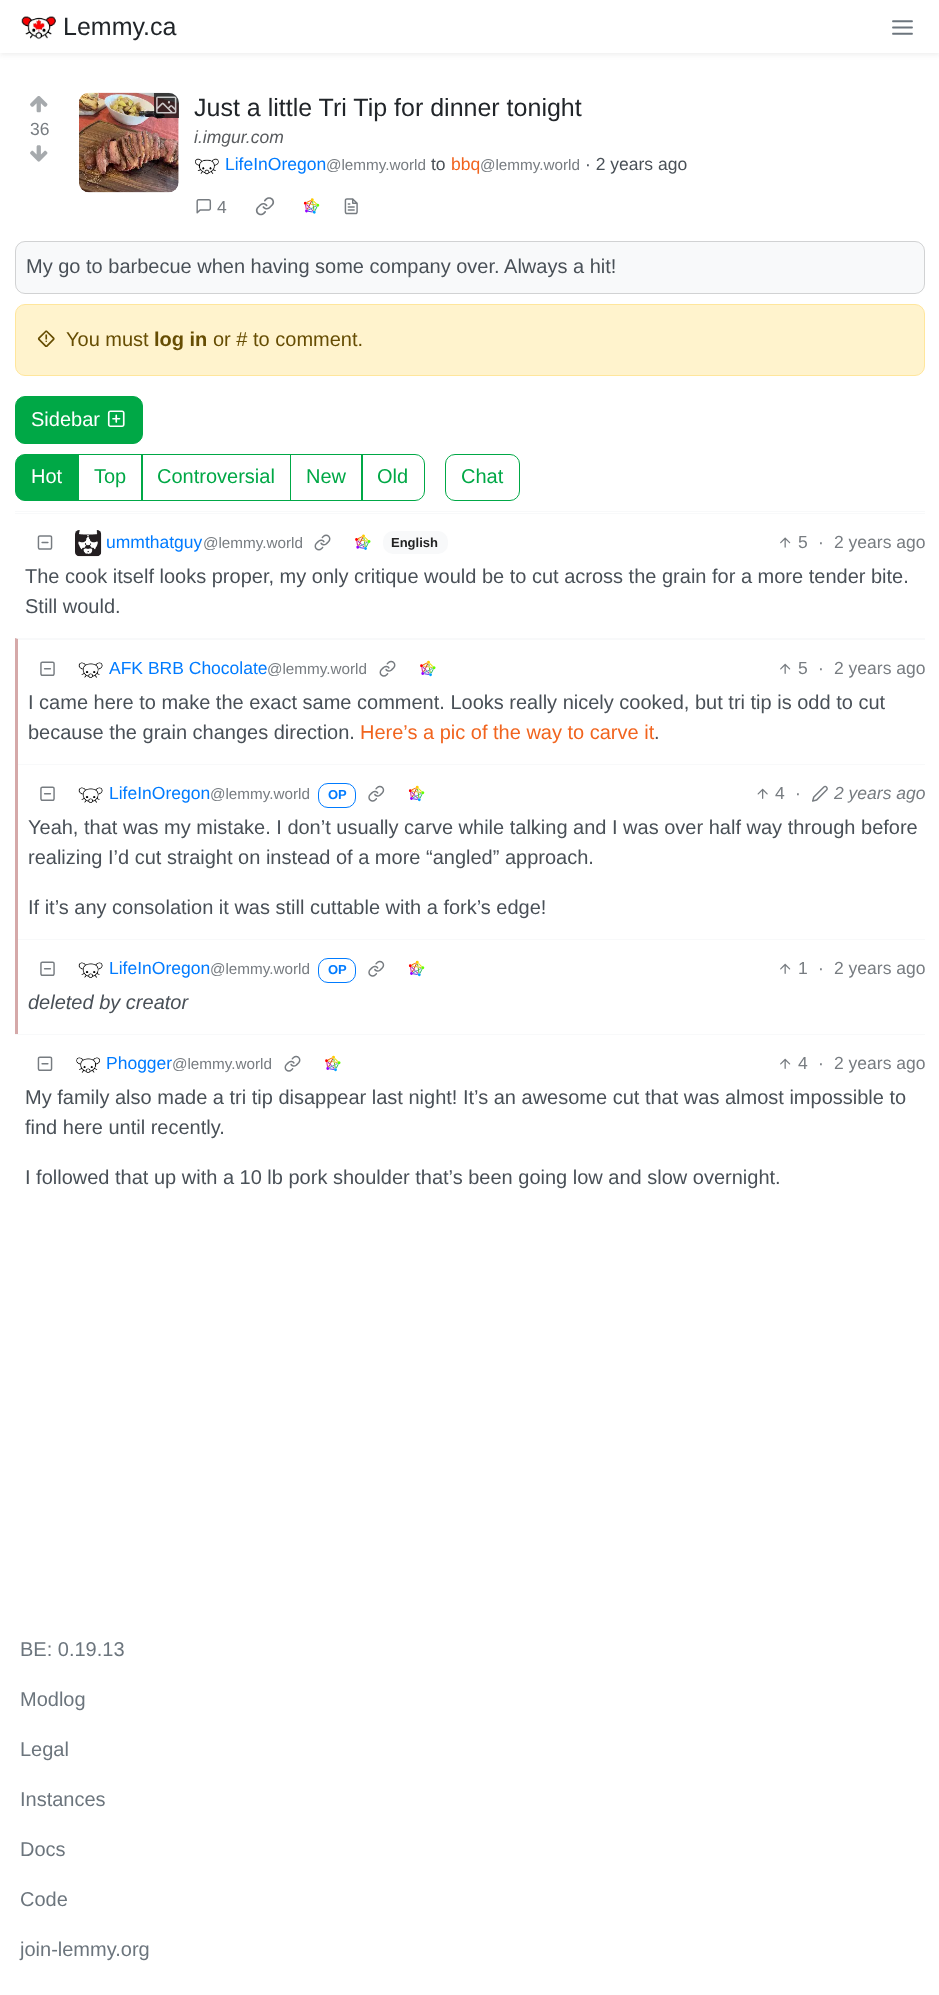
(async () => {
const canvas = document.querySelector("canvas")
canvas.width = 939
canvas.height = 1995
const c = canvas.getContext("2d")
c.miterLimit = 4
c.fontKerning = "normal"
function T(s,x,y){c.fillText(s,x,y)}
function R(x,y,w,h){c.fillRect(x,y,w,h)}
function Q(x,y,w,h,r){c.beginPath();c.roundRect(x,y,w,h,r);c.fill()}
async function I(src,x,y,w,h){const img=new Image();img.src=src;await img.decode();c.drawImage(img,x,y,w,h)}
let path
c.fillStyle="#fff"
R(0,0,939,1995)
c.save()
path = new Path2D("M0 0h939v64h-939zm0 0h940v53h-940z")
c.clip(path,"evenodd")
c.fillStyle="#22222212"
c.filter="blur(2.5px)"
c.beginPath()
c.rect(0,3,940,52)
c.fill()
c.filter="none"
c.restore()
await I("1.png",21,16,35,24)
c.font="25px Liberation Sans"
c.fillStyle="#212529"
T("Lemmy.ca",63,35)
await I("2.png",892,20,21,15)
await I("3.png",30,96,18,17)
c.font="17.5px Liberation Sans"
c.fillStyle="#777c81"
T("36",30,135)
await I("4.png",30,145,18,17)
await I("5.png",79,92,100,101)
c.fillStyle="#000000b3"
c.beginPath()
c.roundRect(154,93,25,25,[0,10,0,5])
c.fill()
await I("6.png",156,96,21,18)
c.font="25px Liberation Sans"
c.fillStyle="#212529"
T("Just a little Tri Tip for dinner tonight",194,116)
c.font="italic 17.5px Liberation Sans"
c.fillStyle="#595c5f"
T("i.imgur.com",194,143)
await I("7.png",195,158,24,17)
c.font="17.5px Liberation Sans"
c.fillStyle="#007bff"
T("LifeInOregon",225,170)
c.font="15.25px Liberation Sans"
c.fillStyle="#777c81"
T("@lemmy.world",326,170)
c.font="17.5px Liberation Sans"
c.fillStyle="#495057"
T("to",431,170)
c.fillStyle="#f1641e"
T("bbq",451,170)
c.font="15.25px Liberation Sans"
c.fillStyle="#777c81"
T("@lemmy.world",480,170)
c.font="17.5px Liberation Sans"
c.fillStyle="#495057"
T("· 2 years ago",585,170)
await I("8.png",196,199,16,15)
c.fillStyle="#777c81"
T("4",217,213)
await I("9.png",255,197,20,19)
await I("10.png",303,198,17,16)
await I("11.png",344,198,14,17)
c.fillStyle="#f8f9fa"
Q(15,241,910,53,10)
c.beginPath()
c.roundRect(15.5,241.5,909,52,9.5)
c.strokeStyle="#2222222e"
c.stroke()
c.font="20px Liberation Sans"
c.fillStyle="#495057"
T("My go to barbecue when having some company over. Always a hit!",26,273)
c.fillStyle="#fff3cd"
c.beginPath()
c.roundRect(15.5,304.5,909,71,9.5)
c.fill()
c.strokeStyle="#ffe69c"
c.stroke()
await I("12.png",37,330,18,17)
c.fillStyle="#664d03"
T("You must",66,346)
c.font="bold 20px Liberation Sans"
T("log in",154,346)
c.font="20px Liberation Sans"
T("or # to comment.",213,346)
c.fillStyle="#00a846"
c.beginPath()
c.roundRect(15.5,396.5,127,47,9.5)
c.fill()
c.strokeStyle="#00a846"
c.stroke()
c.fillStyle="#fff"
T("Sidebar",31,426)
await I("13.png",107,410,18,17)
c.strokeRect(78.5,454.5,64,46)
c.fillStyle="#00a846"
c.beginPath()
c.roundRect(15.5,454.5,63,46,[9.5,0,0,9.5])
c.fill()
c.stroke()
c.fillStyle="#fff"
T("Hot",31,483)
c.fillStyle="#00a846"
T("Top",94,483)
c.strokeRect(141.5,454.5,149,46)
T("Controversial",157,483)
c.strokeRect(290.5,454.5,72,46)
T("New",306,483)
c.beginPath()
c.roundRect(361.5,454.5,63,46,[0,9.5,9.5,0])
c.stroke()
T("Old",377,483)
c.beginPath()
c.roundRect(445.5,454.5,74,46,9.5)
c.stroke()
T("Chat",461,483)
c.fillStyle="#f8f9fa"
R(15,511,910,1)
R(15,513,910,1)
await I("14.png",37,535,16,15)
await I("15.png",75,530,27,27)
c.font="17.5px Liberation Sans"
c.fillStyle="#007bff"
T("ummthatguy",106,548)
c.font="15.25px Liberation Sans"
c.fillStyle="#777c81"
T("@lemmy.world",203,548)
await I("16.png",314,534,17,17)
await I("17.png",355,534,16,16)
c.fillStyle="#f8f9fa"
Q(383,531,65,23,10)
c.font="bold 13px Liberation Sans"
c.fillStyle="#222"
T("English",391,547)
await I("18.png",780,537,11,11)
c.font="17.5px Liberation Sans"
c.fillStyle="#777c81"
T("5",798,548)
T("·",818,548)
T("2 years ago",834,548)
c.font="20px Liberation Sans"
c.fillStyle="#495057"
T("The cook itself looks proper, my only critique would be to cut across the grain for a more tender bite.",25,583)
T("Still would.",25,613)
c.fillStyle="#f8f9fa"
path = new Path2D("M15 638h910v1h-907z")
c.fill(path)
c.fillStyle="#ac535380"
path = new Path2D("M15 1034v-396l3 1v395z")
c.fill(path)
c.fillStyle="#f8f9fa"
R(18,639,907,1)
await I("19.png",40,661,15,15)
await I("20.png",78,662,25,16)
c.font="17.5px Liberation Sans"
c.fillStyle="#007bff"
T("AFK BRB Chocolate",109,674)
c.font="15.25px Liberation Sans"
c.fillStyle="#777c81"
T("@lemmy.world",267,674)
await I("21.png",379,660,17,17)
await I("22.png",420,660,16,17)
await I("23.png",780,663,11,11)
c.font="17.5px Liberation Sans"
T("5",798,674)
T("·",818,674)
T("2 years ago",834,674)
c.font="20px Liberation Sans"
c.fillStyle="#495057"
T("I came here to make the exact same comment. Looks really nicely cooked, but tri tip is odd to cut",28,709)
T("because the grain changes direction.",28,739)
c.fillStyle="#f1641e"
T("Here’s a pic of the way to carve it",360,739)
c.fillStyle="#495057"
T(".",654,739)
c.fillStyle="#f8f9fa"
R(18,764,907,1)
await I("19.png",40,786,15,15)
await I("20.png",78,787,25,16)
c.font="17.5px Liberation Sans"
c.fillStyle="#007bff"
T("LifeInOregon",109,799)
c.font="15.25px Liberation Sans"
c.fillStyle="#777c81"
T("@lemmy.world",210,799)
c.beginPath()
c.roundRect(318.5,783.5,37,24,9.5)
c.strokeStyle="#007bff"
c.stroke()
c.font="bold 13px Liberation Sans"
c.fillStyle="#007bff"
T("OP",328,799)
await I("24.png",368,785,17,17)
await I("25.png",408,785,17,17)
await I("26.png",757,788,11,11)
c.font="17.5px Liberation Sans"
c.fillStyle="#777c81"
T("4",775,799)
T("·",795,799)
await I("27.png",812,785,16,17)
c.font="italic 17.5px Liberation Sans"
T("2 years ago",834,799)
c.font="20px Liberation Sans"
c.fillStyle="#495057"
T("Yeah, that was my mistake. I don’t usually carve while talking and I was over half way through before",28,834)
T("realizing I’d cut straight on instead of a more “angled” approach.",28,864)
T("If it’s any consolation it was still cuttable with a fork’s edge!",28,914)
c.fillStyle="#f8f9fa"
R(18,939,907,1)
await I("19.png",40,961,15,15)
await I("20.png",78,962,25,16)
c.font="17.5px Liberation Sans"
c.fillStyle="#007bff"
T("LifeInOregon",109,974)
c.font="15.25px Liberation Sans"
c.fillStyle="#777c81"
T("@lemmy.world",210,974)
c.beginPath()
c.roundRect(318.5,958.5,37,24,9.5)
c.stroke()
c.font="bold 13px Liberation Sans"
c.fillStyle="#007bff"
T("OP",328,974)
await I("24.png",368,960,17,17)
await I("25.png",408,960,17,17)
await I("23.png",780,963,11,11)
c.font="17.5px Liberation Sans"
c.fillStyle="#777c81"
T("1",798,974)
T("·",818,974)
T("2 years ago",834,974)
c.font="italic 20px Liberation Sans"
c.fillStyle="#495057"
T("deleted by creator",28,1009)
c.fillStyle="#f8f9fa"
R(15,1034,910,1)
await I("28.png",37,1056,16,15)
await I("29.png",76,1057,24,16)
c.font="17.5px Liberation Sans"
c.fillStyle="#007bff"
T("Phogger",106,1069)
c.font="15.25px Liberation Sans"
c.fillStyle="#777c81"
T("@lemmy.world",172,1069)
await I("21.png",284,1055,17,17)
await I("30.png",325,1055,16,17)
await I("23.png",780,1058,11,11)
c.font="17.5px Liberation Sans"
T("4",798,1069)
T("·",818,1069)
T("2 years ago",834,1069)
c.font="20px Liberation Sans"
c.fillStyle="#495057"
T("My family also made a tri tip disappear last night! It’s an awesome cut that was almost impossible to",25,1104)
T("find here until recently.",25,1134)
T("I followed that up with a 10 lb pork shoulder that’s been going low and slow overnight.",25,1184)
c.fillStyle="#6c757d"
T("BE: 0.19.13",20,1656)
T("Modlog",20,1706)
T("Legal",20,1756)
T("Instances",20,1806)
T("Docs",20,1856)
T("Code",20,1906)
T("join-lemmy.org",20,1956)
})()
